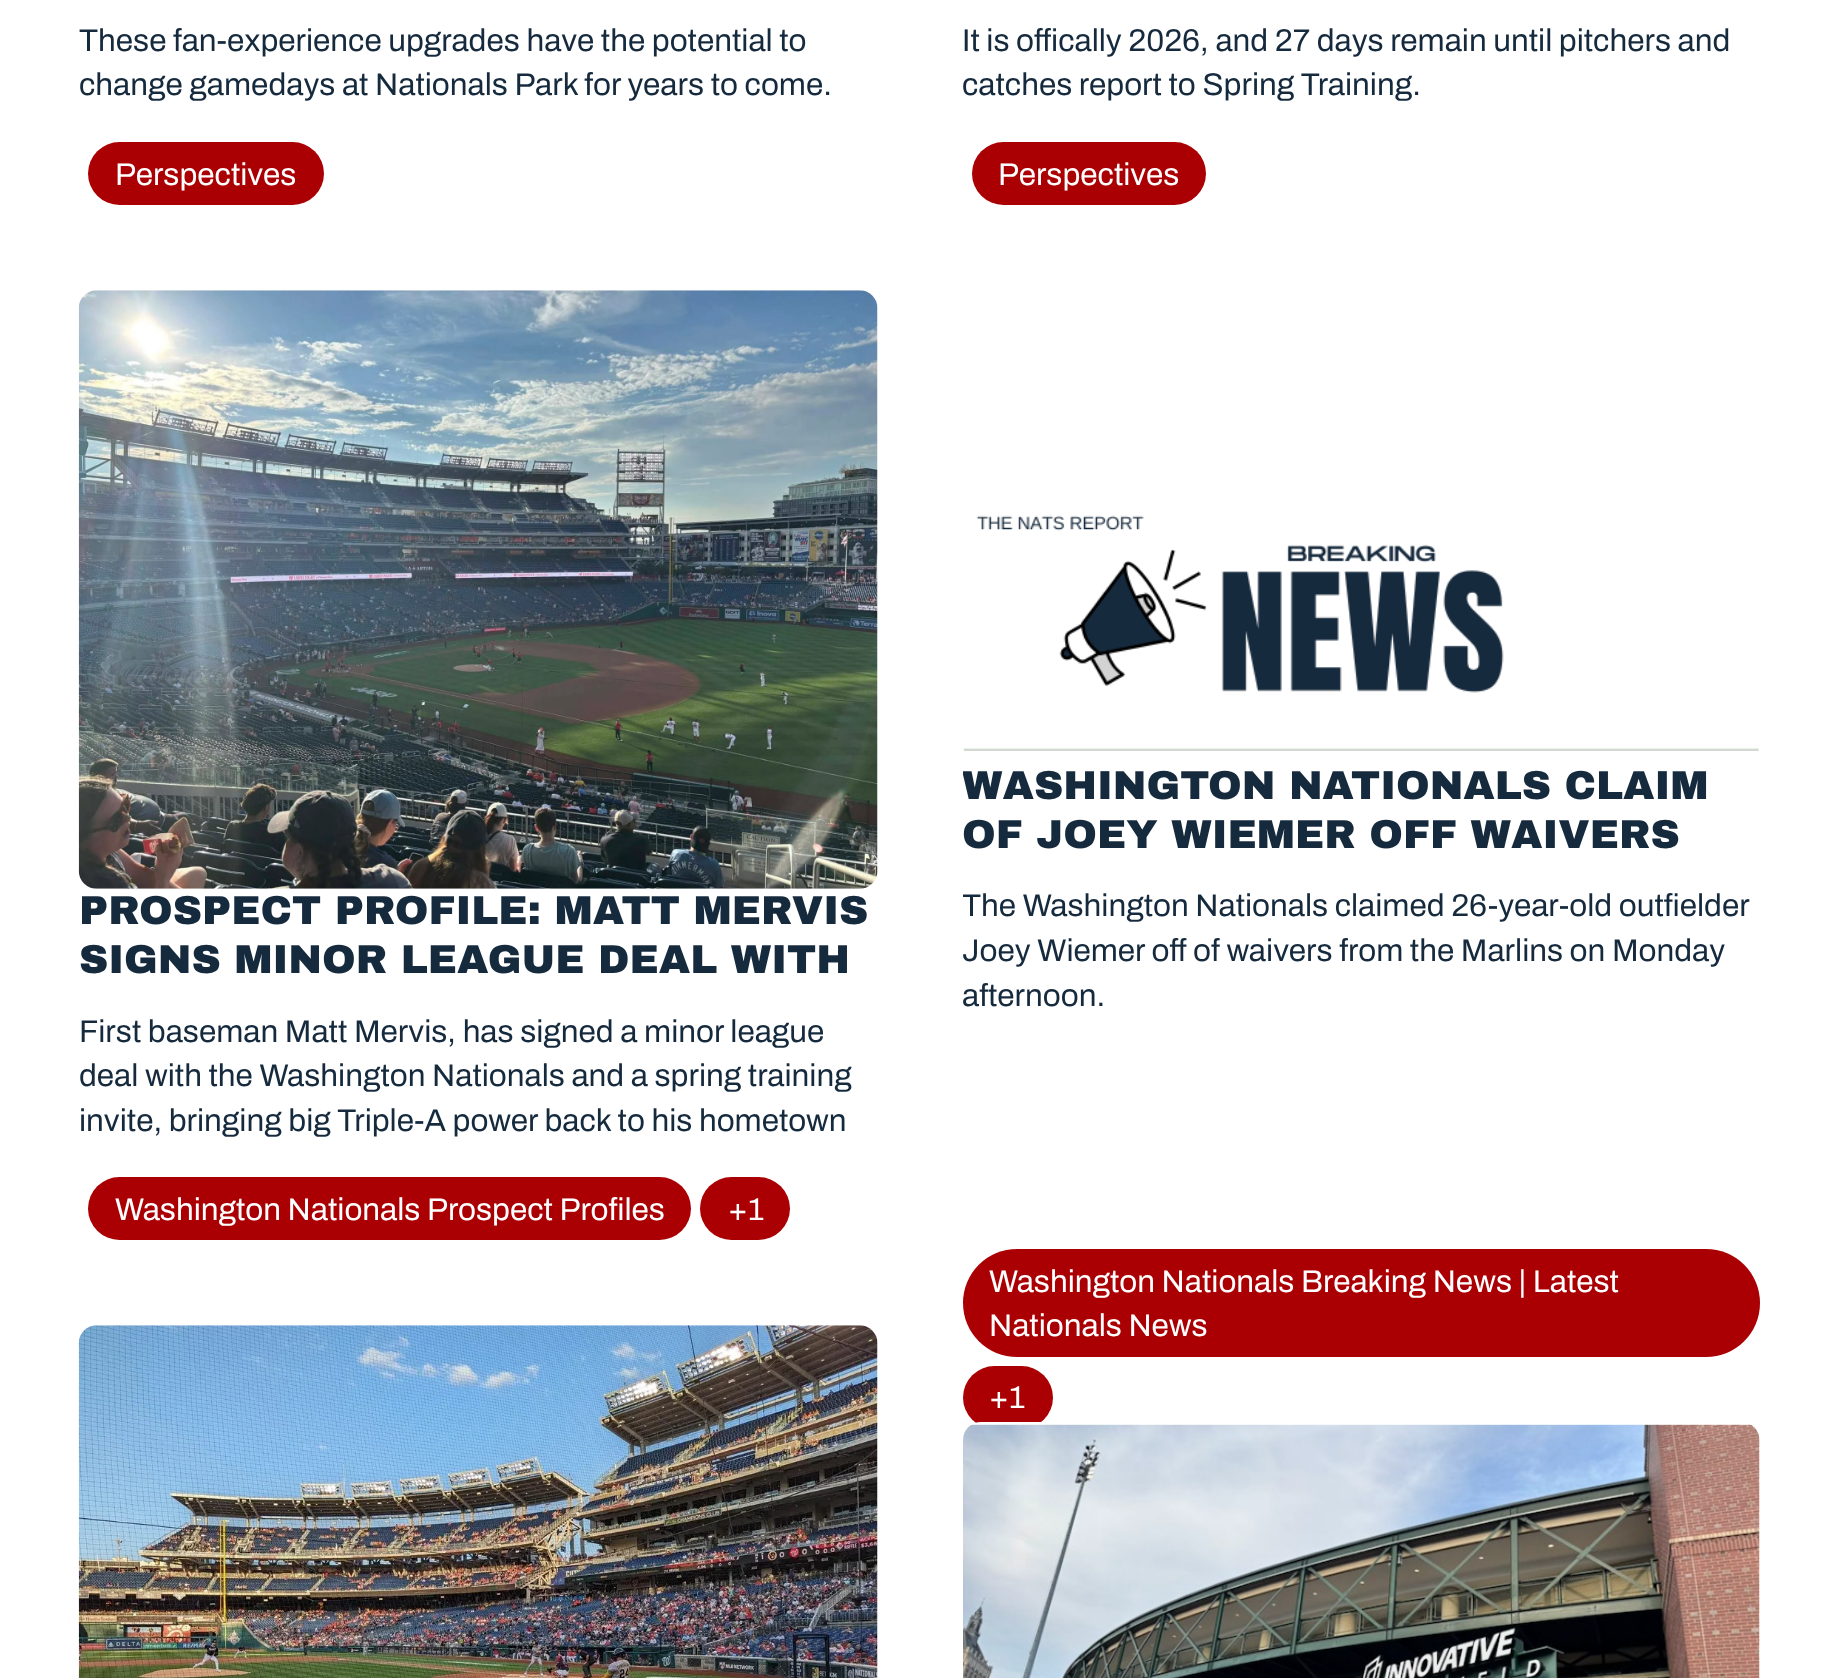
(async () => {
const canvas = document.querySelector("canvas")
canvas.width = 1838
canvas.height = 1678
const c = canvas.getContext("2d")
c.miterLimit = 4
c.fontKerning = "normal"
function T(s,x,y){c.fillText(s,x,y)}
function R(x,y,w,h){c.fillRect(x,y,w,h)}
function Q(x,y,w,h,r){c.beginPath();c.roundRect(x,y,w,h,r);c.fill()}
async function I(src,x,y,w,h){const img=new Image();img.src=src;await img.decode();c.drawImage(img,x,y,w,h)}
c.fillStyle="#fff"
R(0,0,1838,1678)
c.font="31.5px Archivo"
c.fillStyle="#162a3e"
T("These fan-experience upgrades have the potential to",79,51)
T("change gamedays at Nationals Park for years to come.",79,95)
c.fillStyle="#ab0003"
Q(88,142,236,63,31.5)
c.fillStyle="#fff"
T("Perspectives",115,185)
c.fillStyle="#162a3e"
T("It is offically 2026, and 27 days remain until pitchers and",962,51)
T("catches report to Spring Training.",962,95)
c.fillStyle="#ab0003"
Q(972,142,234,63,31.5)
c.fillStyle="#fff"
T("Perspectives",998,185)
await I("1.png",78,290,800,599)
c.font="900 40.5px Archivo Black"
c.fillStyle="#162a3e"
T("PROSPECT PROFILE: MATT MERVIS",79,924)
T("SIGNS MINOR LEAGUE DEAL WITH",79,973)
c.font="31.5px Archivo"
T("First baseman Matt Mervis, has signed a minor league",79,1042)
T("deal with the Washington Nationals and a spring training",79,1086)
T("invite, bringing big Triple-A power back to his hometown",79,1131)
c.fillStyle="#ab0003"
Q(88,1177,603,63,31.5)
c.fillStyle="#fff"
T("Washington Nationals Prospect Profiles",115,1220)
c.fillStyle="#ab0003"
Q(700,1177,90,63,31.5)
c.fillStyle="#fff"
T("+1",728,1220)
await I("2.png",963,515,796,236)
c.save()
c.beginPath()
c.rect(963,763,797,97)
c.clip()
c.font="900 40.5px Archivo Black"
c.fillStyle="#162a3e"
T("WASHINGTON NATIONALS CLAIM",962,799)
c.restore()
c.font="900 40.5px Archivo Black"
c.fillStyle="#162a3e"
T("OF JOEY WIEMER OFF WAIVERS",962,848)
c.save()
c.beginPath()
c.rect(963,882,797,135)
c.clip()
c.font="31.5px Archivo"
T("The Washington Nationals claimed 26-year-old outfielder",962,916)
c.restore()
c.font="31.5px Archivo"
T("Joey Wiemer off of waivers from the Marlins on Monday",962,961)
T("afternoon.",962,1006)
c.fillStyle="#ab0003"
Q(963,1249,797,108,54)
c.fillStyle="#fff"
T("Washington Nationals Breaking News | Latest",989,1292)
T("Nationals News",989,1336)
c.fillStyle="#ab0003"
Q(963,1366,90,63,31.5)
c.fillStyle="#fff"
T("+1",989,1408)
await I("3.png",78,1325,800,353)
await I("4.png",963,1422,797,256)
})()
